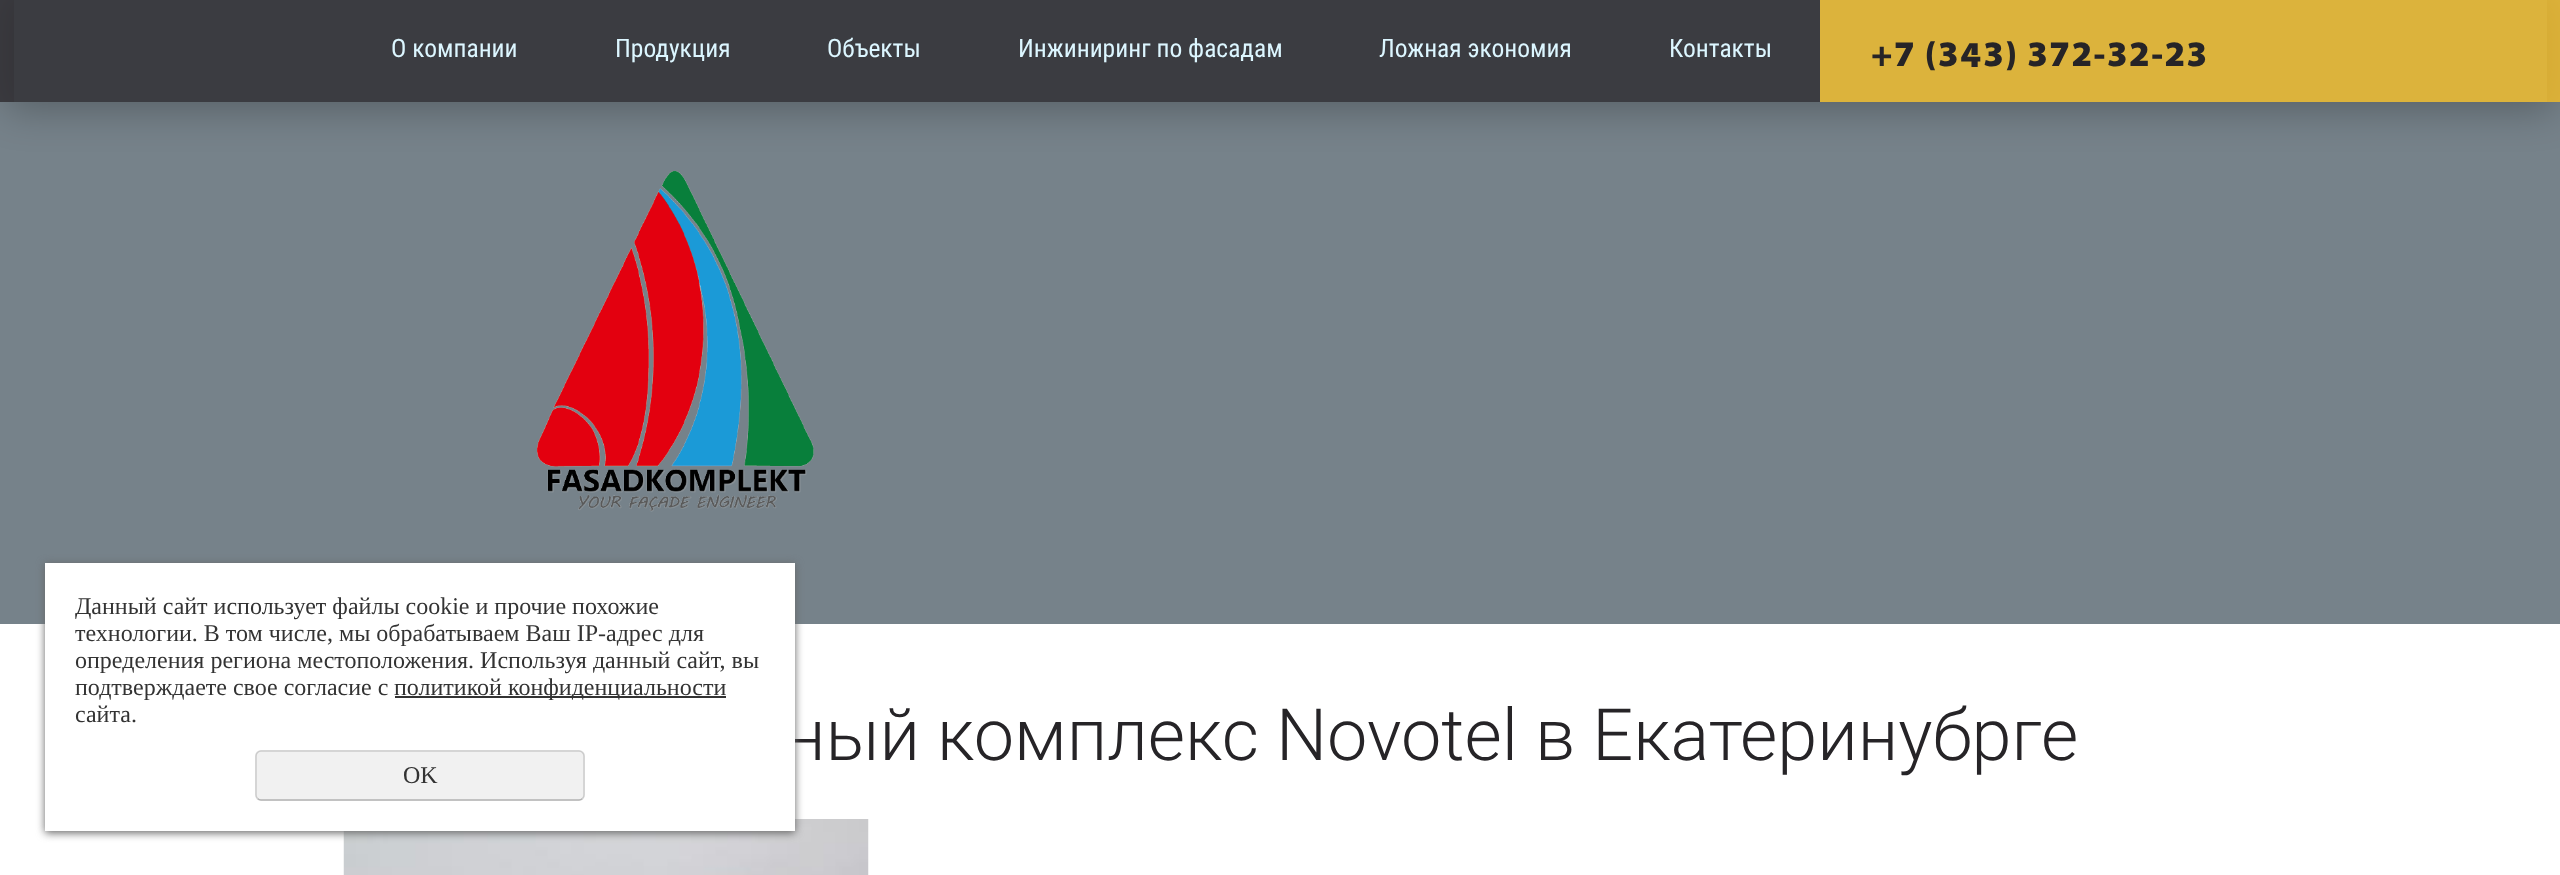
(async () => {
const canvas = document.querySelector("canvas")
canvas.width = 2560
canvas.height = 875
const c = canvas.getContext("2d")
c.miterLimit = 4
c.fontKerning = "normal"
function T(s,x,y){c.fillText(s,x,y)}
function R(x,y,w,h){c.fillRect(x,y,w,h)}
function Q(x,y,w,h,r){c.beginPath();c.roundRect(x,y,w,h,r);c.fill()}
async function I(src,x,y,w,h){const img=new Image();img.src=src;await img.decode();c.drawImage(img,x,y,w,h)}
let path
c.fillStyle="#fff"
R(0,0,2560,875)
c.fillStyle="#76828a"
R(0,0,2560,624)
await I("1.png",537,171,277,341)
c.save()
path = new Path2D("M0 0h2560v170h-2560zm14 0h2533v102h-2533z")
c.clip(path,"evenodd")
c.fillStyle="#00000042"
c.filter="blur(19.5px)"
c.beginPath()
c.rect(6,-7,2549,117)
c.fill()
c.filter="none"
c.restore()
c.fillStyle="#282428bf"
R(0,0,1820,102)
c.font="25.5px Roboto Condensed"
c.fillStyle="#dcf6ff"
T("О компании",391,57)
T("Продукция",615,57)
T("Объекты",827,57)
T("Инжиниринг по фасадам",1018,57)
T("Ложная экономия",1379,57)
T("Контакты",1669,57)
c.fillStyle="#ffc322bf"
R(1820,0,740,102)
c.letterSpacing="1.5px"
c.font="900 36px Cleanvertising"
c.fillStyle="#262427"
T("+7 (343) 372-32-23",1871,66)
c.letterSpacing="0px"
c.wordSpacing="-0.5px"
c.font="300 72px Roboto"
T("ный комплекс Novotel в Екатеринубрге",785,760)
await I("2.png",343,819,526,56)
c.fillStyle="#666"
c.filter="blur(4px)"
c.beginPath()
c.rect(45,564,750,269)
c.fill()
c.filter="none"
c.fillStyle="#fff"
R(45,563,750,268)
c.wordSpacing="0px"
c.font="24px Liberation Serif"
c.fillStyle="#333"
T("Данный сайт использует файлы cookie и прочие похожие",75,614)
T("технологии. В том числе, мы обрабатываем Ваш IP-адрес для",75,641)
T("определения региона местоположения. Используя данный сайт, вы",75,668)
T("подтверждаете свое согласие с",75,695)
R(395,696,331,2)
T("политикой конфиденциальности",394,695)
T("сайта.",75,722)
c.fillStyle="#f1f1f1"
Q(255,750,330,51,6)
path = new Path2D("M582.5 798.5c-1 1-2 1.5-3.5 1.5h-318c-1.5 0-2.5-.5-3.5-1.5")
c.strokeStyle="#b3b3b3"
c.lineWidth=1.5
c.stroke(path)
path = new Path2D("M257.5 798.5c-1-1-1.5-2-1.5-3.5v-39c0-1.5 .5-2.5 1.5-3.5c1-1 2-1.5 3.5-1.5h318c1.5 0 2.5 .5 3.5 1.5c1 1 1.5 2 1.5 3.5v39c0 1.5-.5 2.5-1.5 3.5")
c.strokeStyle="#ccc"
c.stroke(path)
c.fillStyle="#333"
T("OK",403,783)
})()
